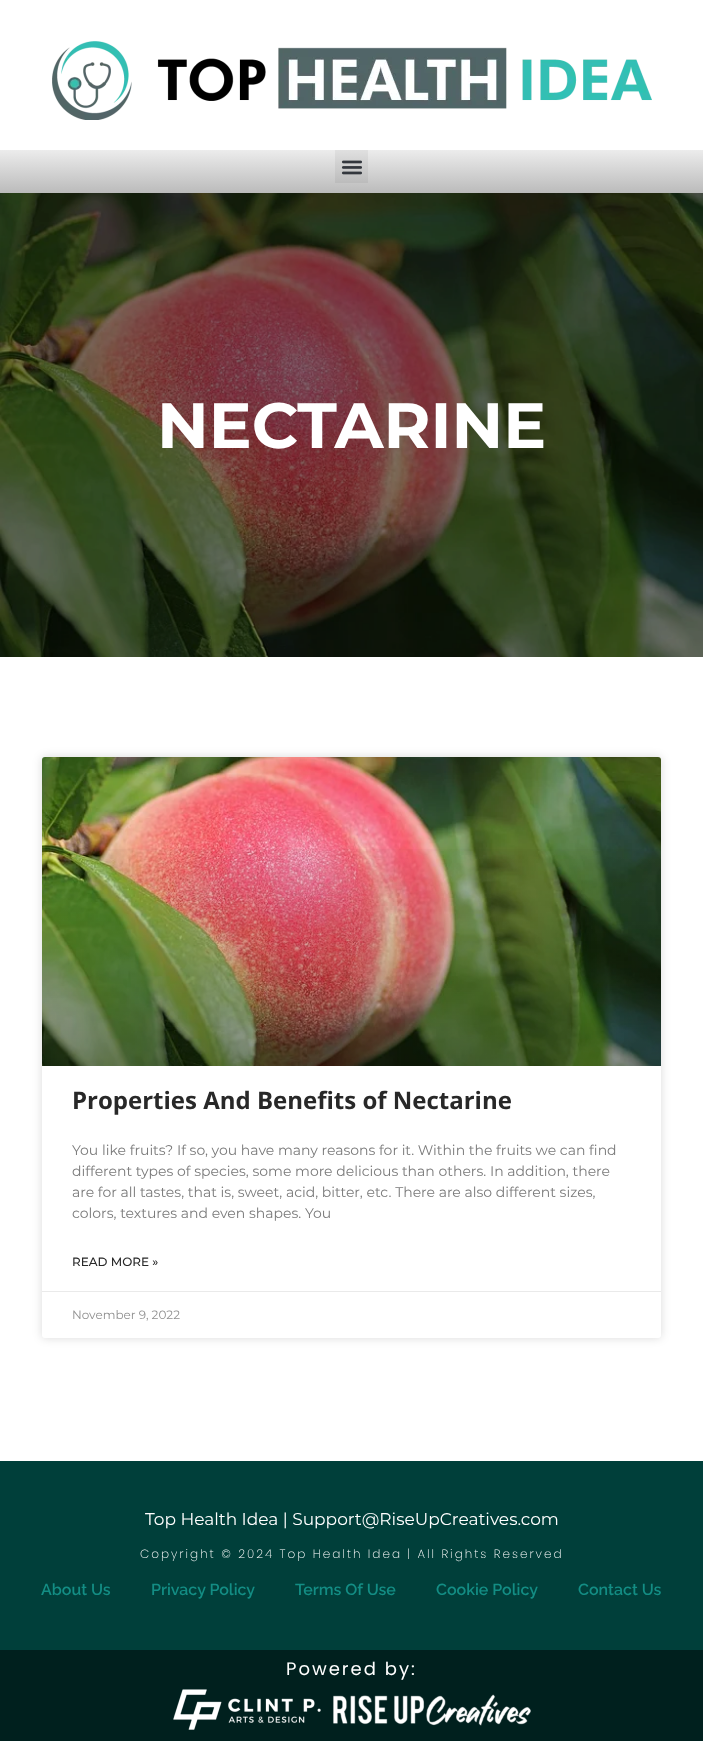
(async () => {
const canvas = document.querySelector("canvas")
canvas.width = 703
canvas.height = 1759
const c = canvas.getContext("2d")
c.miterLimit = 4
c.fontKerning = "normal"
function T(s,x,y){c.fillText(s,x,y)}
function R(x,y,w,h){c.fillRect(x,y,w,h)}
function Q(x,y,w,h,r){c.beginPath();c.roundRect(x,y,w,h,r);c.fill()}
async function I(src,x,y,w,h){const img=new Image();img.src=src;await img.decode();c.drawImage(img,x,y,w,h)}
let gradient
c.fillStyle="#fff"
R(0,0,703,1759)
await I("1.png",52,41,600,79)
gradient = c.createLinearGradient(352,150,352,193)
gradient.addColorStop(0,"#ececec")
gradient.addColorStop(1,"#bbb")
c.fillStyle = gradient
R(0,150,703,43)
c.fillStyle="#0000000d"
R(335,150,33,33)
await I("2.png",341,160,21,15)
await I("3.png",0,193,703,464)
c.font="bold 64px Montserrat"
c.fillStyle="#fff"
T("NECTARINE",157,448)
c.fillStyle="#00000026"
c.filter="blur(5px)"
c.beginPath()
c.roundRect(42,757,619,581,3)
c.fill()
c.filter="none"
c.fillStyle="#fff"
Q(42,757,619,581,3)
await I("4.png",42,757,619,309)
gradient = c.createLinearGradient(352,1066,352,757)
gradient.addColorStop(0,"#00000059")
gradient.addColorStop(.75,"#00000000")
c.fillStyle = gradient
R(42,849,619,217)
c.font="bold 24px Open Sans"
c.fillStyle="#282828"
T("Properties And Benefits of Nectarine",72,1109)
c.font="14px Montserrat"
c.fillStyle="#7a7a7a"
T("You like fruits? If so, you have many reasons for it. Within the fruits we can find",72,1155)
T("different types of species, some more delicious than others. In addition, there",72,1176)
T("are for all tastes, that is, sweet, acid, bitter, etc. There are also different sizes,",72,1197)
T("colors, textures and even shapes. You",72,1218)
c.font="500 12px Montserrat"
c.fillStyle="#282828"
T("READ MORE »",72,1266)
c.fillStyle="#eaeaea"
R(42,1291,619,1)
c.font="12px Montserrat"
c.fillStyle="#8f8f8f"
T("November 9, 2022",72,1319)
c.fillStyle="#003f3a"
R(0,1461,703,189)
c.font="17px Montserrat"
c.fillStyle="#fff"
T("Top Health Idea | Support@RiseUpCreatives.com",145,1525)
c.letterSpacing="2px"
c.font="200 12px Poppins"
T("Copyright © 2024 Top Health Idea | All Rights Reserved",140,1558)
c.letterSpacing="0px"
c.font="600 16px Raleway"
c.fillStyle="#138d84"
T("About Us",41,1595)
T("Privacy Policy",151,1595)
T("Terms Of Use",295,1595)
T("Cookie Policy",436,1595)
T("Contact Us",578,1595)
c.fillStyle="#00201e"
R(0,1650,703,91)
c.letterSpacing="2px"
c.font="18px Poppins"
c.fillStyle="#fff"
T("Powered by:",286,1675)
await I("5.png",173,1689,148,41)
await I("6.png",333,1694,198,32)
})()
